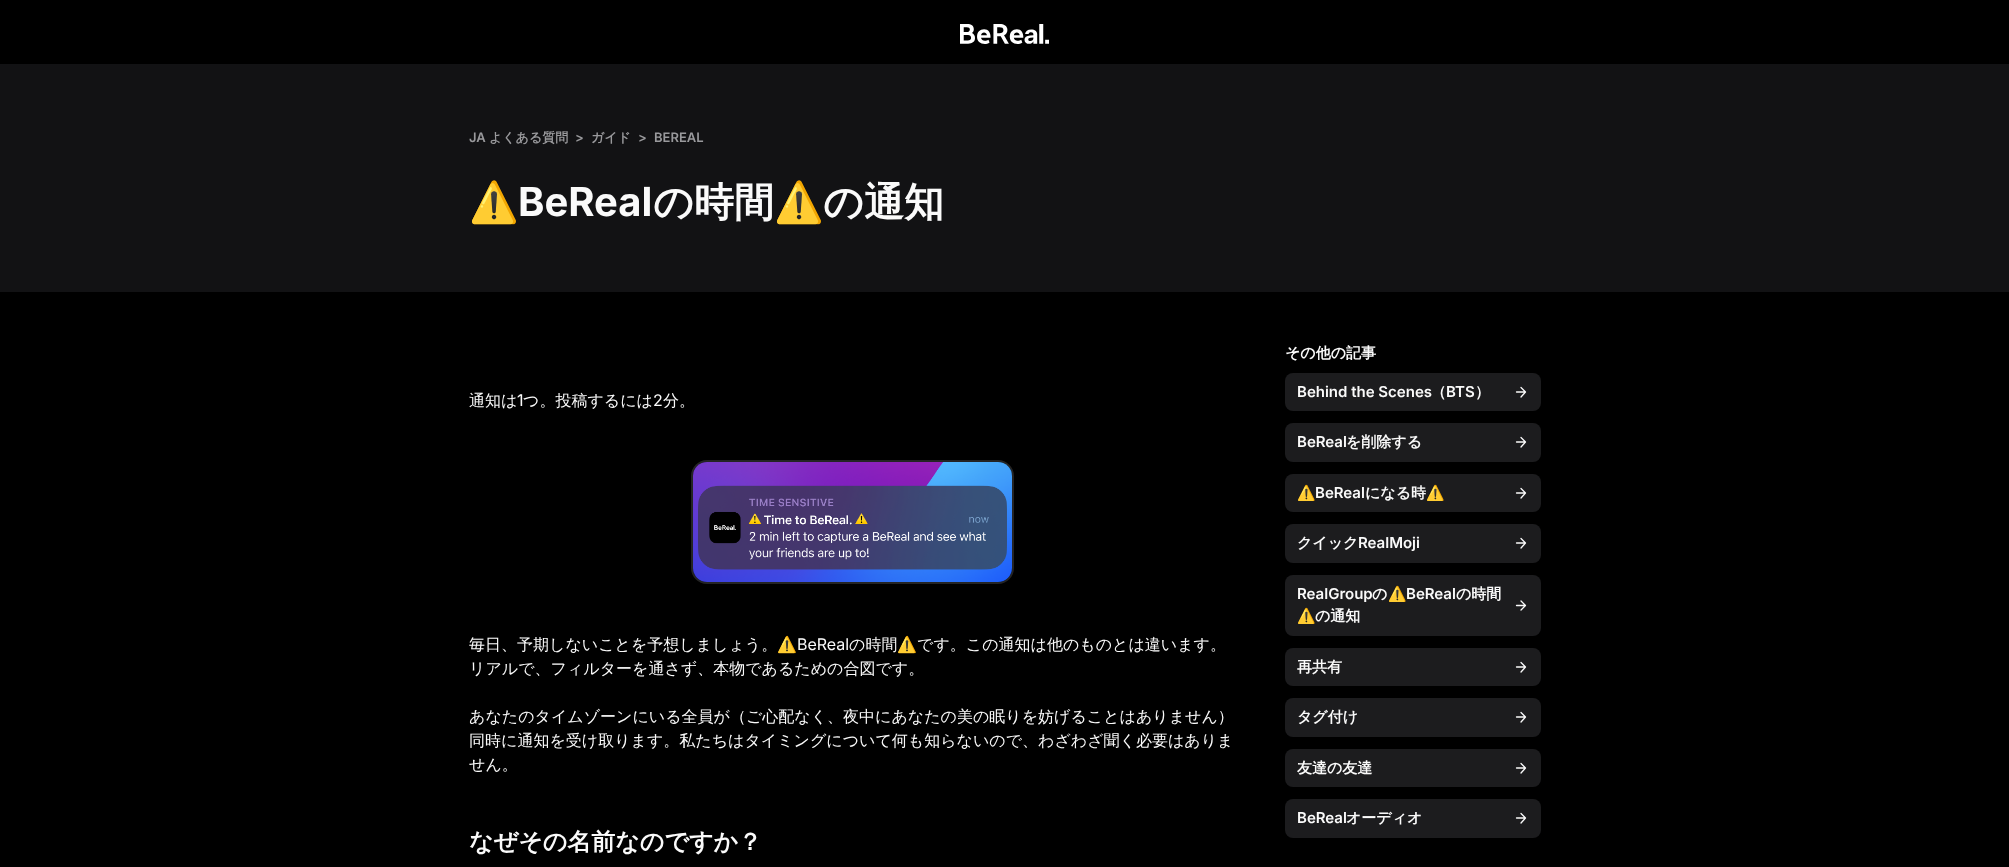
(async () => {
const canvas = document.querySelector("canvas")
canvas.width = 2009
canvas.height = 867
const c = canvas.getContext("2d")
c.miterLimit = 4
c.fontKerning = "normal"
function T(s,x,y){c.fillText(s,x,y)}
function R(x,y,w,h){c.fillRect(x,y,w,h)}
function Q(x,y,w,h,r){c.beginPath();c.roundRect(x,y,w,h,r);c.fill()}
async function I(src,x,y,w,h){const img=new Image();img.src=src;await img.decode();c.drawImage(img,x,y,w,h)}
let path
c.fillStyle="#000"
R(0,0,2009,867)
await I("1.png",960,24,89,20)
c.fillStyle="#121214"
R(0,64,2009,228)
c.font="600 13px Inter"
c.fillStyle="#99999c"
T("JA",469,142)
c.font="bold 13px WenQuanYi Zen Hei"
T("よくある質問",489,142)
c.font="600 13px Inter"
T(">",575,142)
c.font="bold 13px WenQuanYi Zen Hei"
T("ガイド",591,142)
c.font="600 13px Inter"
T(">",638,142)
T("BEREAL",654,142)
c.font="bold 40px Noto Color Emoji"
c.fillStyle="#fafafa"
T("⚠️",469,216)
c.font="bold 40px Inter"
T("BeReal",518,216)
c.font="bold 40px WenQuanYi Zen Hei"
T("の時間",653,216)
c.font="bold 40px Noto Color Emoji"
T("⚠️",774,216)
c.font="bold 40px WenQuanYi Zen Hei"
T("の通知",823,216)
c.font="500 16px WenQuanYi Zen Hei"
T("通知は",469,406)
c.font="16px Inter"
T("1",517,406)
c.font="500 16px WenQuanYi Zen Hei"
T("つ。投稿するには",523,406)
c.font="16px Inter"
T("2",653,406)
c.font="500 16px WenQuanYi Zen Hei"
T("分。",663,406)
c.beginPath()
c.roundRect(692,461,321,122,15)
c.strokeStyle="#242424"
c.lineWidth=2
c.stroke()
await I("2.png",693,462,319,120)
T("毎日、予期しないことを予想しましょう。",469,650)
c.font="16px Noto Color Emoji"
T("⚠️",777,650)
c.font="16px Inter"
T("BeReal",797,650)
c.font="500 16px WenQuanYi Zen Hei"
T("の時間",849,650)
c.font="16px Noto Color Emoji"
T("⚠️",897,650)
c.font="500 16px WenQuanYi Zen Hei"
T("です。この通知は他のものとは違います。",917,650)
T("リアルで、フィルターを通さず、本物であるための合図です。",469,674)
T("あなたのタイムゾーンにいる全員が（ご心配なく、夜中にあなたの美の眠りを妨げることはありません）",469,722)
T("同時に通知を受け取ります。私たちはタイミングについて何も知らないので、わざわざ聞く必要はありま",469,746)
T("せん。",469,770)
c.font="bold 24px WenQuanYi Zen Hei"
T("なぜその名前なのですか？",469,850)
c.font="bold 15px WenQuanYi Zen Hei"
T("その他の記事",1285,358)
c.fillStyle="#1c1c1e"
Q(1285,373,256,38,8)
c.font="600 15px Inter"
c.fillStyle="#fafafa"
T("Behind the Scenes",1297,397)
c.font="bold 15px WenQuanYi Zen Hei"
T("（",1431,397)
c.font="600 15px Inter"
T("BTS",1446,397)
c.font="bold 15px WenQuanYi Zen Hei"
T("）",1475,397)
c.fillStyle="#1c1c1e"
Q(1285,423,256,39,8)
path = new Path2D("M1516.5 392h8.5m-4-4.5l4.5 4.5l-4.5 5m-4.5 45h8.5m-4-4.5l4.5 4.5l-4.5 5")
c.strokeStyle="#fafafa"
c.lineWidth=1.3
c.lineCap="round"
c.lineJoin="round"
c.stroke(path)
c.font="600 15px Inter"
c.fillStyle="#fafafa"
T("BeReal",1297,447)
c.font="bold 15px WenQuanYi Zen Hei"
T("を削除する",1346,447)
c.fillStyle="#1c1c1e"
Q(1285,474,256,38,8)
c.font="bold 15px Noto Color Emoji"
c.fillStyle="#fafafa"
T("⚠️",1297,498)
c.font="600 15px Inter"
T("BeReal",1315,498)
c.font="bold 15px WenQuanYi Zen Hei"
T("になる時",1365,498)
c.font="bold 15px Noto Color Emoji"
T("⚠️",1426,498)
c.fillStyle="#1c1c1e"
Q(1285,524,256,39,8)
path = new Path2D("M1516.5 493h8.5m-4-4.5l4.5 4.5l-4.5 5m-4.5 45h8.5m-4-4.5l4.5 4.5l-4.5 5")
c.stroke(path)
c.font="bold 15px WenQuanYi Zen Hei"
c.fillStyle="#fafafa"
T("クイック",1297,548)
c.font="600 15px Inter"
T("RealMoji",1358,548)
c.fillStyle="#1c1c1e"
Q(1285,575,256,61,8)
c.fillStyle="#fafafa"
T("RealGroup",1297,599)
c.font="bold 15px WenQuanYi Zen Hei"
T("の",1372,599)
c.font="bold 15px Noto Color Emoji"
T("⚠️",1388,599)
c.font="600 15px Inter"
T("BeReal",1406,599)
c.font="bold 15px WenQuanYi Zen Hei"
T("の時間",1456,599)
c.font="bold 15px Noto Color Emoji"
T("⚠️",1297,621)
c.font="bold 15px WenQuanYi Zen Hei"
T("の通知",1315,621)
path = new Path2D("M1516.5 605.5h8.5m-4-4.5l4.5 4.5l-4.5 4.5")
c.stroke(path)
c.fillStyle="#1c1c1e"
Q(1285,648,256,38,8)
c.fillStyle="#fafafa"
T("再共有",1297,672)
c.fillStyle="#1c1c1e"
Q(1285,698,256,39,8)
path = new Path2D("M1516.5 667h8.5m-4-4.5l4.5 4.5l-4.5 5m-4.5 45h8.5m-4-4.5l4.5 4.5l-4.5 5")
c.stroke(path)
c.fillStyle="#fafafa"
T("タグ付け",1297,722)
c.fillStyle="#1c1c1e"
Q(1285,749,256,38,8)
c.fillStyle="#fafafa"
T("友達の友達",1297,773)
c.fillStyle="#1c1c1e"
Q(1285,799,256,39,8)
path = new Path2D("M1516.5 768h8.5m-4-4.5l4.5 4.5l-4.5 5m-4.5 45h8.5m-4-4.5l4.5 4.5l-4.5 5")
c.stroke(path)
c.font="600 15px Inter"
c.fillStyle="#fafafa"
T("BeReal",1297,823)
c.font="bold 15px WenQuanYi Zen Hei"
T("オーディオ",1346,823)
})()
